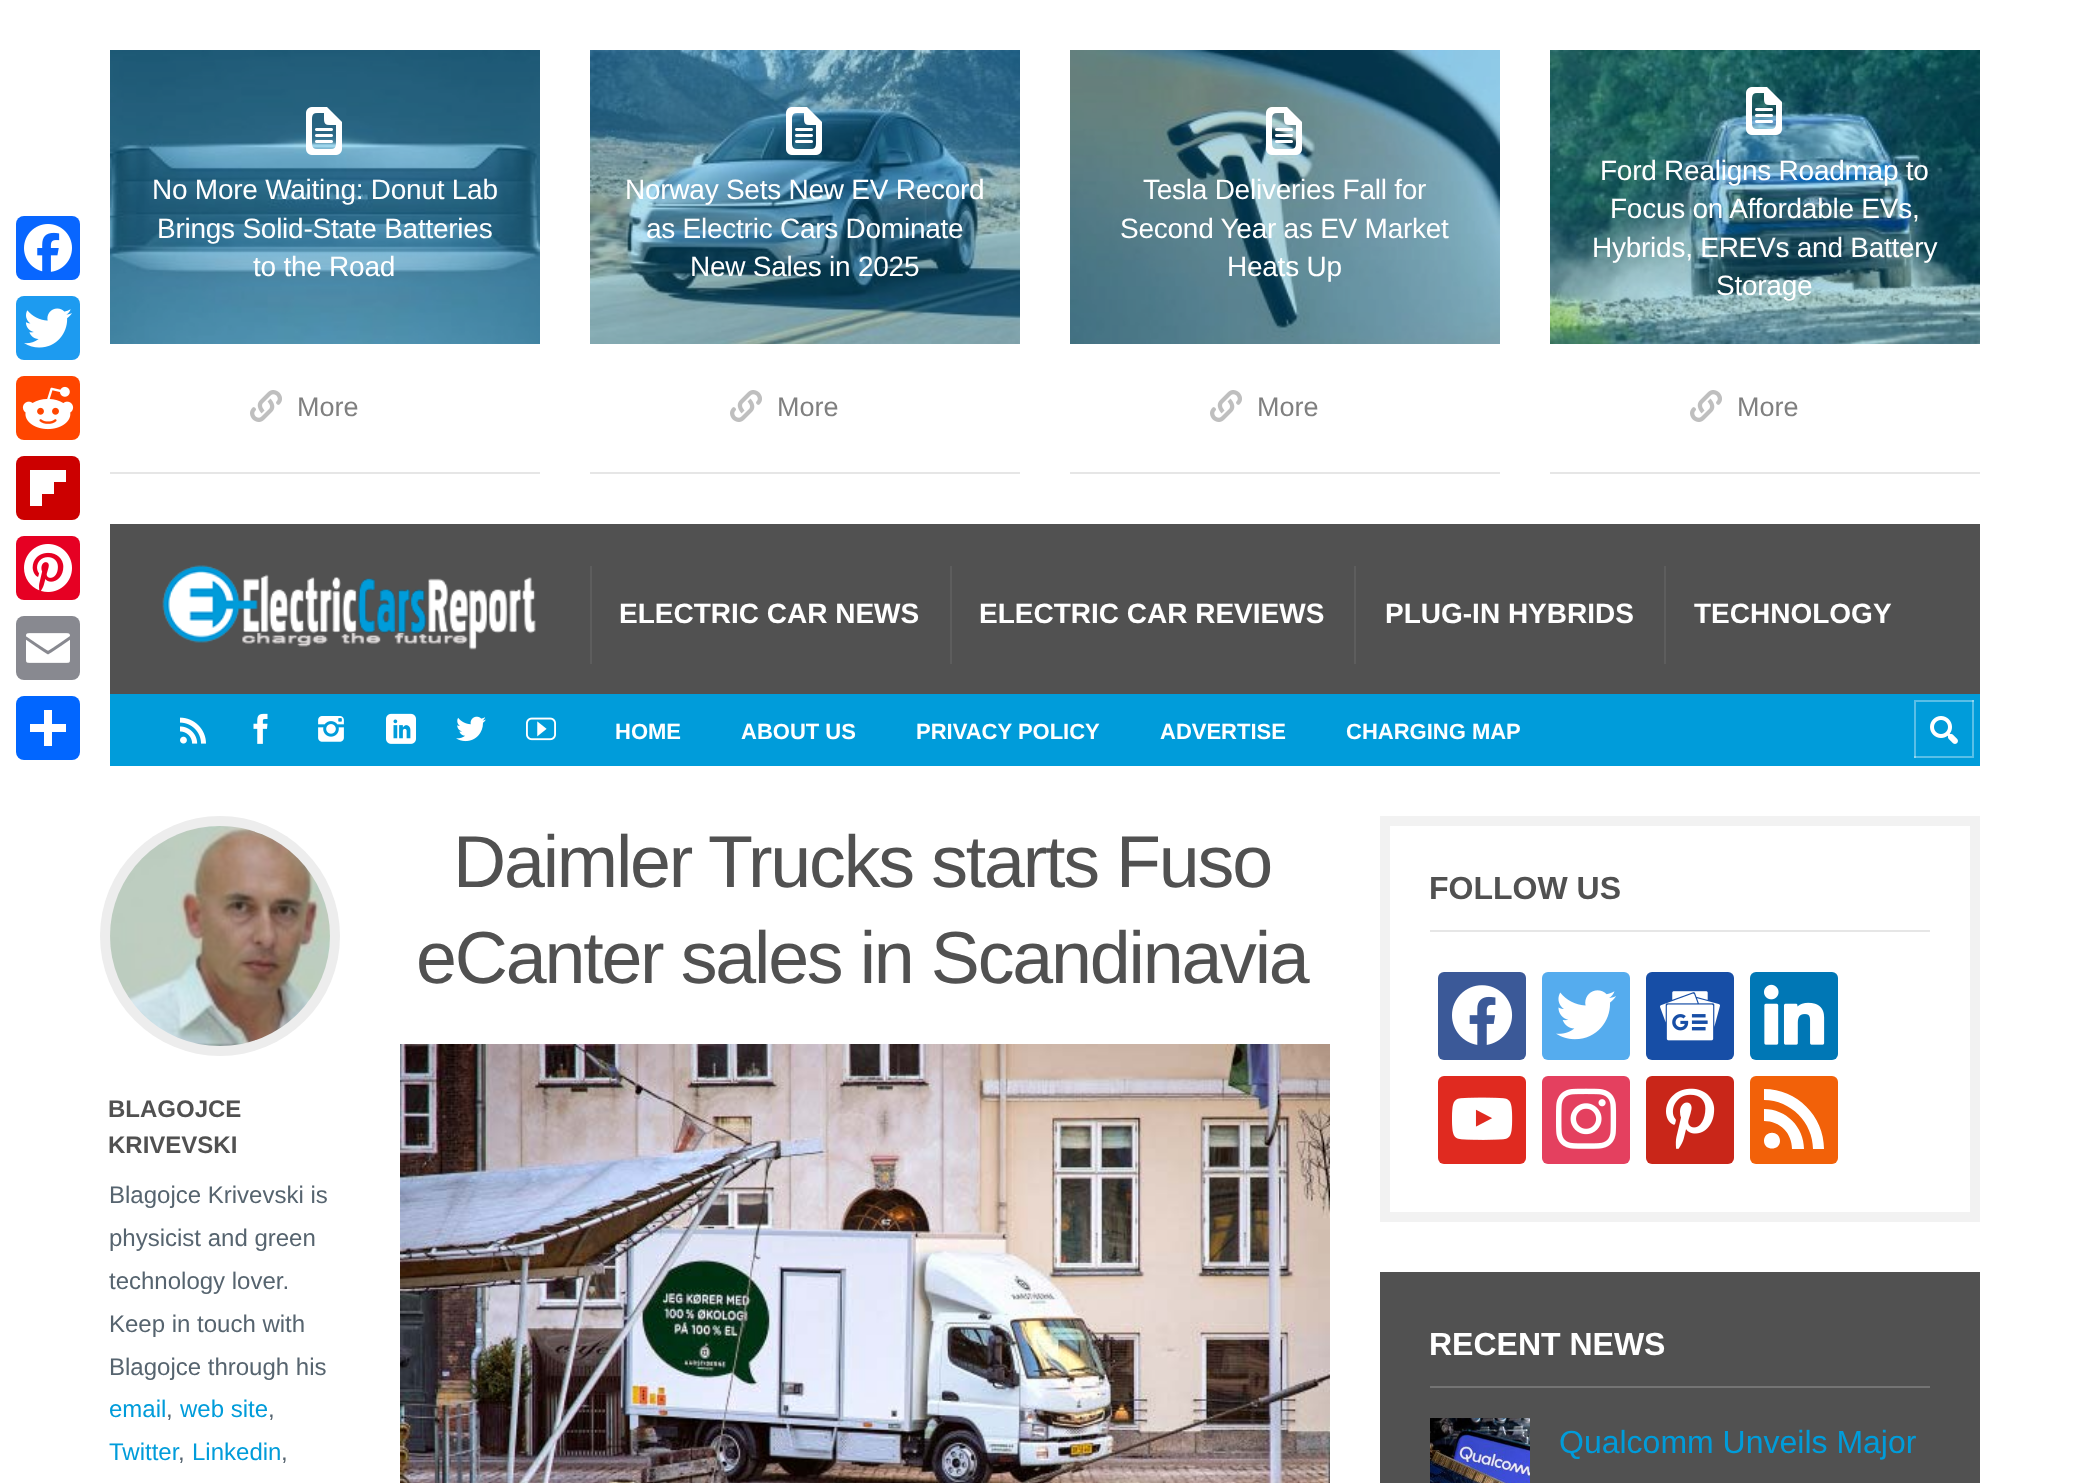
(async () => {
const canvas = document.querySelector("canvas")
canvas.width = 2087
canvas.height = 1483
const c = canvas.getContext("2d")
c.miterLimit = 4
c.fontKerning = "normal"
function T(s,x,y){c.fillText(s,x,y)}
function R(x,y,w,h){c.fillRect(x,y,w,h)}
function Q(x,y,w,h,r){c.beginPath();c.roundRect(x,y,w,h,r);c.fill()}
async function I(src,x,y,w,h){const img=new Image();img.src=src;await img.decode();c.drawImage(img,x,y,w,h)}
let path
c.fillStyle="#fff"
R(0,0,2087,1483)
c.fillStyle="#0866ff"
Q(16,216,64,64,8)
await I("1.png",24,224,48,48)
c.fillStyle="#1d9bf0"
Q(16,296,64,64,8)
await I("2.png",24,308,48,40)
c.fillStyle="#ff4500"
Q(16,376,64,64,8)
await I("3.png",22,386,52,44)
c.fillStyle="#c00"
Q(16,456,64,64,8)
c.fillStyle="#fff"
R(42,482,12,12)
R(42,470,24,12)
R(30,470,12,36)
c.fillStyle="#e60023"
Q(16,536,64,64,8)
await I("4.png",24,544,48,48)
c.fillStyle="#888990"
Q(16,616,64,64,8)
await I("5.png",26,633,44,30)
c.fillStyle="#0166ff"
Q(16,696,64,64,8)
c.fillStyle="#fff"
R(44,710,8,36)
R(30,724,36,8)
c.fillStyle="#e6e6e6"
R(110,472,430,2)
await I("6.png",110,50,430,294)
await I("7.png",306,107,36,48)
c.letterSpacing="-0.25px"
c.font="28px Liberation Sans"
c.fillStyle="#fff"
T("No More Waiting: Donut Lab",152,199)
T("Brings Solid-State Batteries",157,238)
T("to the Road",253,276)
await I("8.png",250,390,32,32)
c.letterSpacing="0px"
c.font="27px Liberation Sans"
c.fillStyle="#808080"
T("More",297,416)
c.fillStyle="#e6e6e6"
R(590,472,430,2)
await I("9.png",590,50,430,294)
await I("10.png",786,107,36,48)
c.letterSpacing="-0.25px"
c.font="28px Liberation Sans"
c.fillStyle="#fff"
T("Norway Sets New EV Record",625,199)
T("as Electric Cars Dominate",646,238)
T("New Sales in 2025",690,276)
await I("8.png",730,390,32,32)
c.letterSpacing="0px"
c.font="27px Liberation Sans"
c.fillStyle="#808080"
T("More",777,416)
c.fillStyle="#e6e6e6"
R(1070,472,430,2)
await I("11.png",1070,50,430,294)
await I("12.png",1266,107,36,48)
c.letterSpacing="-0.25px"
c.font="28px Liberation Sans"
c.fillStyle="#fff"
T("Tesla Deliveries Fall for",1143,199)
T("Second Year as EV Market",1120,238)
T("Heats Up",1227,276)
await I("8.png",1210,390,32,32)
c.letterSpacing="0px"
c.font="27px Liberation Sans"
c.fillStyle="#808080"
T("More",1257,416)
c.fillStyle="#e6e6e6"
R(1550,472,430,2)
await I("13.png",1550,50,430,294)
await I("14.png",1746,87,36,48)
c.letterSpacing="-0.25px"
c.font="28px Liberation Sans"
c.fillStyle="#fff"
T("Ford Realigns Roadmap to",1600,180)
T("Focus on Affordable EVs,",1610,218)
T("Hybrids, EREVs and Battery",1592,257)
T("Storage",1716,295)
await I("8.png",1690,390,32,32)
c.letterSpacing="0px"
c.font="27px Liberation Sans"
c.fillStyle="#808080"
T("More",1737,416)
c.fillStyle="#515151"
R(110,524,1870,170)
await I("15.png",162,565,374,85)
c.fillStyle="#5d5d5d"
R(590,566,2,98)
c.font="bold 28px Liberation Sans"
c.fillStyle="#fff"
T("ELECTRIC CAR NEWS",619,623)
c.fillStyle="#5d5d5d"
R(950,566,2,98)
c.fillStyle="#fff"
T("ELECTRIC CAR REVIEWS",979,623)
c.fillStyle="#5d5d5d"
R(1354,566,2,98)
c.fillStyle="#fff"
T("PLUG-IN HYBRIDS",1385,623)
c.fillStyle="#5d5d5d"
R(1664,566,2,98)
c.fillStyle="#fff"
T("TECHNOLOGY",1694,623)
c.fillStyle="#009cda"
R(110,694,1870,72)
await I("16.png",180,717,26,27)
await I("17.png",253,713,15,31)
await I("18.png",318,716,26,26)
await I("19.png",386,713,30,31)
await I("20.png",456,716,30,26)
await I("21.png",526,717,30,24)
c.font="bold 22px Liberation Sans"
c.fillStyle="#fff"
T("HOME",615,739)
T("ABOUT US",741,739)
T("PRIVACY POLICY",916,739)
T("ADVERTISE",1160,739)
T("CHARGING MAP",1346,739)
c.save()
c.beginPath()
c.rect(1914,700,60,58)
c.clip()
c.fillStyle="#59bfe7"
path = new Path2D("M1716 502h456v454h-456zm196 196h60v58h-60z")
c.fill(path,"evenodd")
c.fillStyle="#ffffff59"
path = new Path2D("M1716 502h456v454h-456zm200 200h60v58h-60z")
c.fill(path,"evenodd")
c.restore()
await I("22.png",1930,716,28,28)
c.letterSpacing="-2.2px"
c.font="73.6px Liberation Sans"
c.fillStyle="#515151"
T("Daimler Trucks starts Fuso",453,887)
T("eCanter sales in Scandinavia",416,983)
await I("23.png",400,1044,930,439)
c.fillStyle="#ededed"
c.beginPath()
c.arc(220,936,120,0,7)
c.fill()
await I("24.png",110,826,220,220)
c.letterSpacing="0px"
c.font="bold 24px Liberation Sans"
c.fillStyle="#515151"
T("BLAGOJCE",108,1117)
T("KRIVEVSKI",108,1153)
c.font="24px Liberation Sans"
c.fillStyle="#56646f"
T("Blagojce Krivevski is",109,1203)
T("physicist and green",109,1246)
T("technology lover.",109,1289)
T("Keep in touch with",109,1332)
T("Blagojce through his",109,1375)
c.fillStyle="#009cda"
T("email",109,1417)
c.fillStyle="#56646f"
T(",",166,1417)
c.fillStyle="#009cda"
T("web site",180,1417)
c.fillStyle="#56646f"
T(",",268,1417)
c.fillStyle="#009cda"
T("Twitter",109,1460)
c.fillStyle="#56646f"
T(",",178,1460)
c.fillStyle="#009cda"
T("Linkedin",192,1460)
c.fillStyle="#56646f"
T(",",281,1460)
c.strokeStyle="#f2f2f2"
c.lineWidth=10
c.strokeRect(1385,821,590,396)
c.fillStyle="#e6e6e6"
R(1430,930,500,2)
c.font="bold 32px Liberation Sans"
c.fillStyle="#515151"
T("FOLLOW US",1429,899)
c.fillStyle="#3b5998"
Q(1438,972,88,88,6)
await I("25.png",1452,985,61,60)
c.fillStyle="#55acee"
Q(1542,972,88,88,6)
await I("26.png",1556,990,60,50)
c.fillStyle="#174ea6"
Q(1646,972,88,88,6)
await I("27.png",1660,991,60,50)
c.fillStyle="#0077b5"
Q(1750,972,88,88,6)
await I("28.png",1764,984,61,61)
c.fillStyle="#e02a20"
Q(1438,1076,88,88,6)
await I("29.png",1452,1097,61,43)
c.fillStyle="#e4405f"
Q(1542,1076,88,88,6)
await I("30.png",1556,1088,61,61)
c.fillStyle="#c92619"
Q(1646,1076,88,88,6)
await I("31.png",1666,1088,49,61)
c.fillStyle="#f26109"
Q(1750,1076,88,88,6)
c.fillStyle="#fff"
path = new Path2D("M1780 1141c0 10-16 10-16 0c0-11 16-11 16 0zm-16-20c16 0 28 12 28 28h12c0-22-18-40-40-40zm0-21c27 0 49 23 49 49h11c0-33-27-60-60-60z")
c.fill(path)
c.fillStyle="#515151"
R(1380,1272,600,211)
c.fillStyle="#747474"
R(1430,1386,500,2)
c.fillStyle="#fff"
T("RECENT NEWS",1429,1355)
await I("32.png",1430,1418,100,65)
c.font="32px Liberation Sans"
c.fillStyle="#009cda"
T("Qualcomm Unveils Major",1559,1453)
})()
